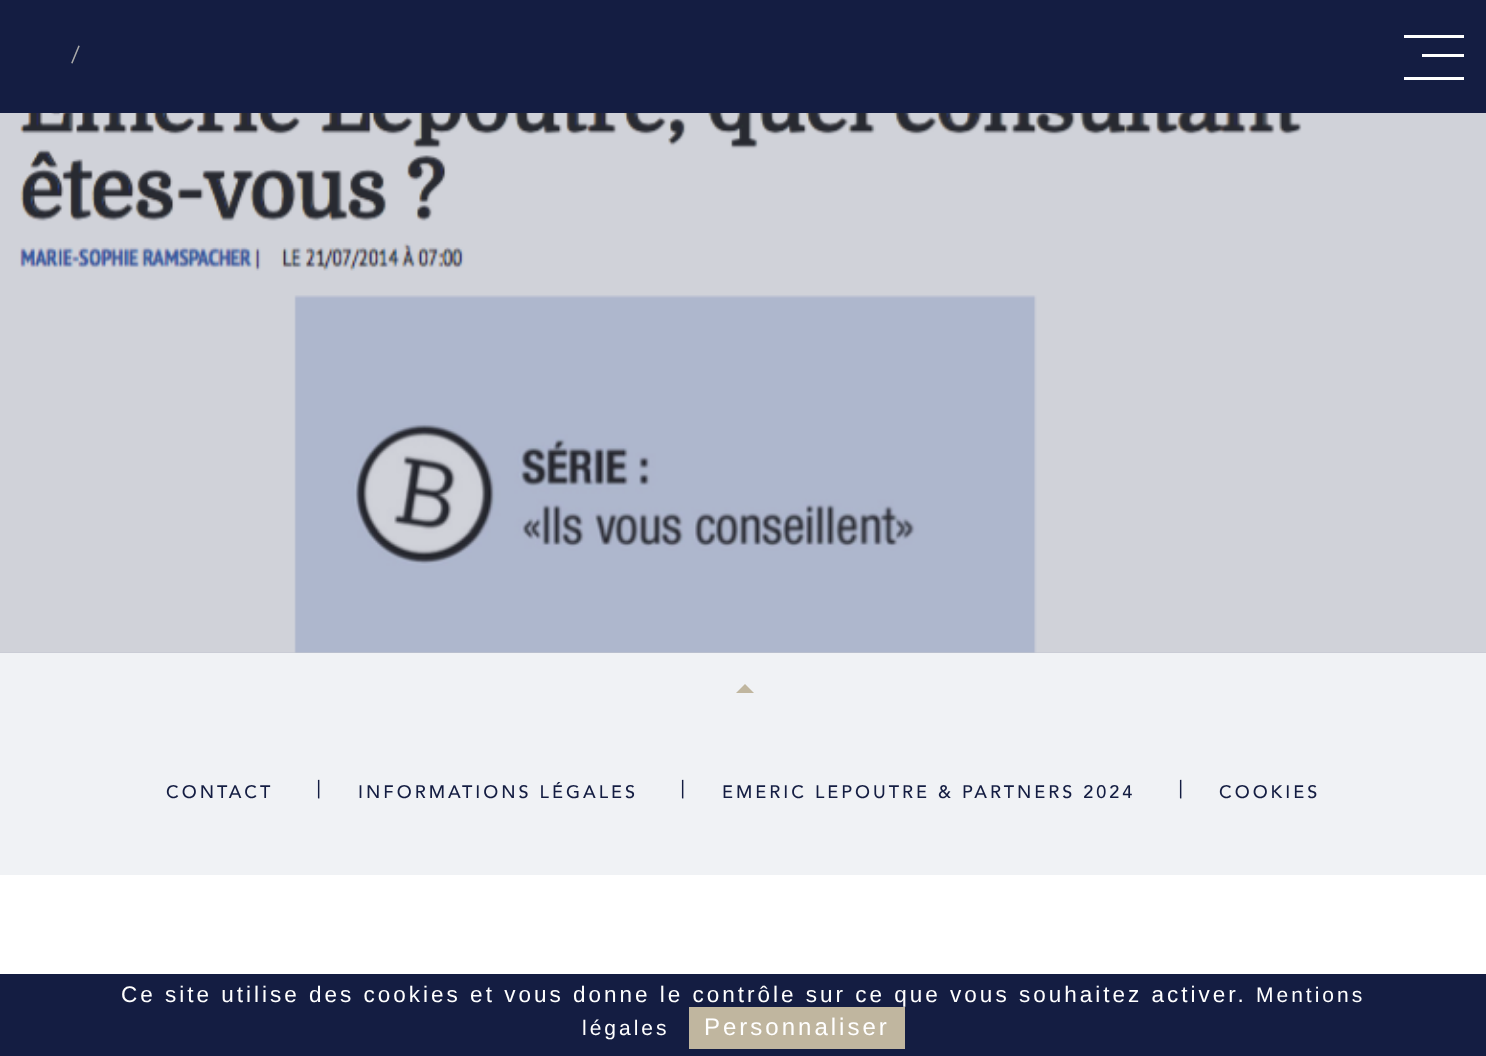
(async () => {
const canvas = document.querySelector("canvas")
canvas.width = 1486
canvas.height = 1056
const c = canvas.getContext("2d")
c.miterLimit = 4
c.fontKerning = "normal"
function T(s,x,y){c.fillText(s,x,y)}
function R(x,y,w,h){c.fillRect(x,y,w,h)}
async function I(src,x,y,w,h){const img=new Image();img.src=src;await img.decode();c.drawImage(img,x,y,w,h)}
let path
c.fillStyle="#fff"
R(0,0,1486,1056)
c.fillStyle="#f0f2f5"
R(0,653,1486,222)
c.fillStyle="#c4c7d1"
R(0,652,1486,1)
c.fillStyle="#141d42"
R(0,0,1486,113)
c.letterSpacing="3px"
c.font="24px Avenir"
c.fillStyle="#aaa"
T("/",71,63)
c.fillStyle="#fff"
R(1404,35,60,3)
R(1422,54,42,3)
R(1404,77,60,3)
await I("1.png",0,113,1486,540)
c.fillStyle="#c0b69f"
path = new Path2D("M736 693h18l-9-9z")
c.fill(path)
c.font="500 18px Avenir"
c.fillStyle="#141d42"
T("CONTACT",166,798)
c.font="24px Avenir"
T("|",316,798)
c.font="500 18px Avenir"
T("INFORMATIONS LÉGALES",358,798)
c.font="24px Avenir"
T("|",680,798)
c.font="500 18px Avenir"
T("EMERIC LEPOUTRE & PARTNERS 2024",722,798)
c.font="24px Avenir"
T("|",1178,798)
c.font="500 18px Avenir"
T("COOKIES",1219,798)
R(0,974,1486,82)
c.font="22.5px Liberation Sans"
c.fillStyle="#fff"
T("Ce site utilise des cookies et vous donne le contrôle sur ce que vous souhaitez activer.",121,1002)
c.font="21px Liberation Sans"
T("Mentions",1256,1002)
T("légales",582,1035)
c.fillStyle="#c0b69f"
R(689,1007,216,42)
c.font="24px Liberation Sans"
c.fillStyle="#fff"
T("Personnaliser",704,1035)
})()
